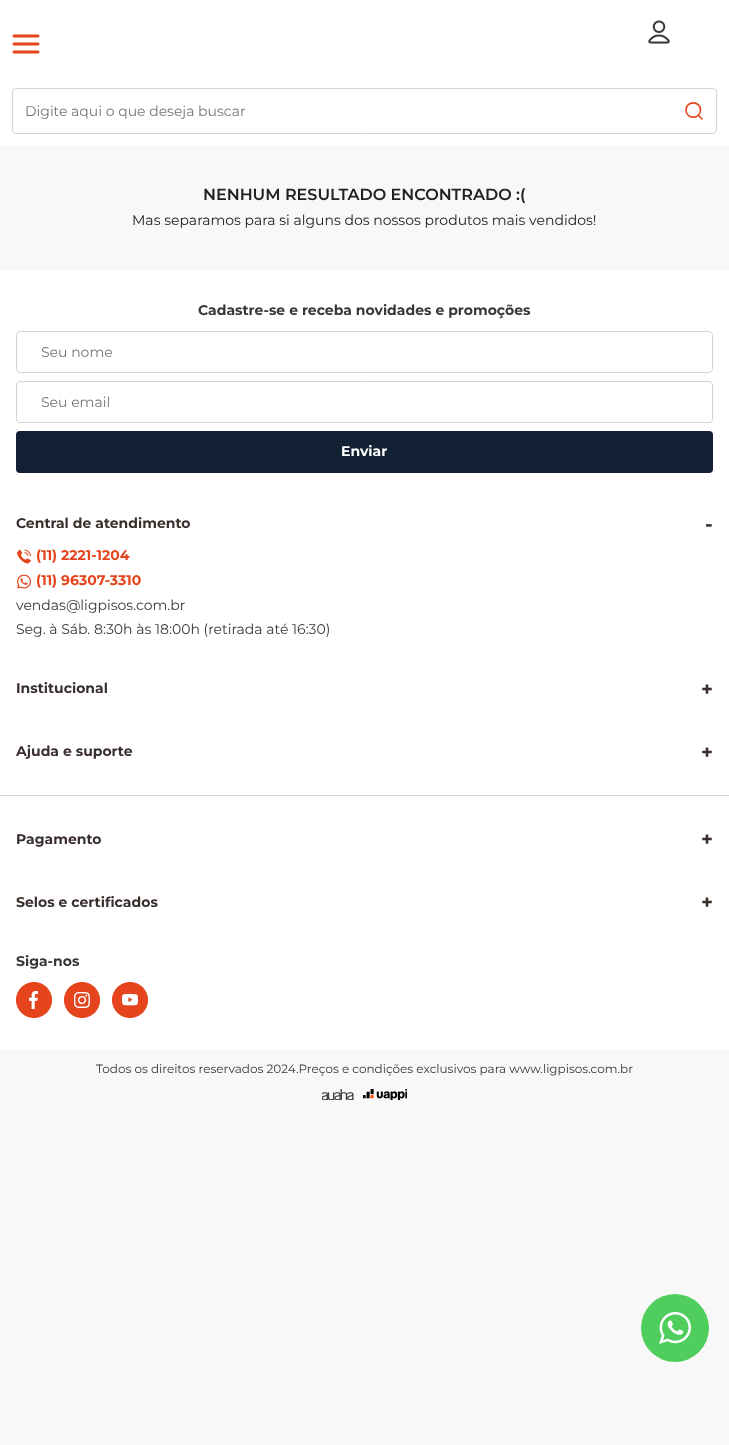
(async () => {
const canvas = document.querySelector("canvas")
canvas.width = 729
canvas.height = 1445
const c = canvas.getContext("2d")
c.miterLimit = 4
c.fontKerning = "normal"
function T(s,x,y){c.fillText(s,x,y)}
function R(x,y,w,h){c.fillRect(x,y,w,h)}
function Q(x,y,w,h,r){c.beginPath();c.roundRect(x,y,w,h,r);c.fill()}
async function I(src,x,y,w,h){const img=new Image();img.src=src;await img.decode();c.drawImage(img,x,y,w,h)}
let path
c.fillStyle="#f9f8f8"
R(0,0,729,1445)
c.fillStyle="#fff"
R(0,0,729,146)
path = new Path2D("M14 44h24m-24-8h24m-24 16h24")
c.strokeStyle="#e6441d"
c.lineWidth=3
c.lineCap="round"
c.lineJoin="round"
c.stroke(path)
await I("1.png",648,20,22,24)
c.beginPath()
c.roundRect(12.5,88.5,704,45,3.5)
c.strokeStyle="#d4d4d4"
c.lineWidth=1
c.lineJoin="miter"
c.stroke()
c.font="14px Montserrat"
c.fillStyle="#757575"
T("Digite aqui o que deseja buscar",25,116)
path = new Path2D("M702 119l-3.5-3.5m2-5.5c0 9.5-14.5 9.5-14.5 0c0-9.5 14.5-9.5 14.5 0z")
c.strokeStyle="#e6441d"
c.lineWidth=1.6
c.lineJoin="round"
c.stroke(path)
c.font="600 16px Montserrat"
c.fillStyle="#202020"
T("NENHUM RESULTADO ENCONTRADO :(",203,200)
c.font="14px Montserrat"
T("Mas separamos para si alguns dos nossos produtos mais vendidos!",132,225)
c.fillStyle="#fff"
R(0,271,729,779)
c.font="bold 14px Montserrat"
c.fillStyle="#373737"
T("Cadastre-se e receba novidades e promoções",198,315)
c.beginPath()
c.roundRect(16.5,331.5,696,41,3.5)
c.strokeStyle="#d4d4d4"
c.lineWidth=1
c.lineJoin="miter"
c.stroke()
c.font="14px Montserrat"
c.fillStyle="#757575"
T("Seu nome",41,357)
c.beginPath()
c.roundRect(16.5,381.5,696,41,3.5)
c.stroke()
T("Seu email",41,407)
c.fillStyle="#112033"
Q(16,431,697,42,4)
c.font="bold 14px Montserrat"
c.fillStyle="#fff"
T("Enviar",341,456)
c.fillStyle="#392f2d"
T("Central de atendimento",16,528)
c.font="bold 20px Montserrat"
T("-",705,531)
await I("2.png",17,549,14,15)
c.font="bold 14px Montserrat"
c.fillStyle="#e6441d"
T("(11) 2221-1204",36,560)
await I("3.png",17,574,14,15)
T("(11) 96307-3310",36,585)
c.font="14px Montserrat"
c.fillStyle="#373737"
T("vendas@ligpisos.com.br",16,610)
T("Seg. à Sáb. 8:30h às 18:00h (retirada até 16:30)",16,634)
c.font="bold 14px Montserrat"
c.fillStyle="#392f2d"
T("Institucional",16,693)
c.font="bold 20px Montserrat"
T("+",701,696)
c.font="bold 14px Montserrat"
T("Ajuda e suporte",16,756)
c.font="bold 20px Montserrat"
T("+",701,759)
c.fillStyle="#d4d4d4"
R(0,795,729,1)
c.font="bold 14px Montserrat"
c.fillStyle="#392f2d"
T("Pagamento",16,844)
c.font="bold 20px Montserrat"
T("+",701,846)
c.font="bold 14px Montserrat"
T("Selos e certificados",16,907)
c.font="bold 20px Montserrat"
T("+",701,909)
c.font="bold 14px Montserrat"
c.fillStyle="#373737"
T("Siga-nos",16,966)
await I("4.png",16,982,36,36)
await I("5.png",64,982,36,36)
await I("6.png",112,982,36,36)
c.font="12px Montserrat"
T("Todos os direitos reservados 2024.Preços e condições exclusivos para www.ligpisos.com.br",96,1073)
await I("7.png",322,1089,32,11)
await I("8.png",363,1089,44,11)
c.fillStyle="#4fce5d"
c.beginPath()
c.arc(675,1328,34,0,7)
c.fill()
await I("9.png",659,1312,32,32)
})()
